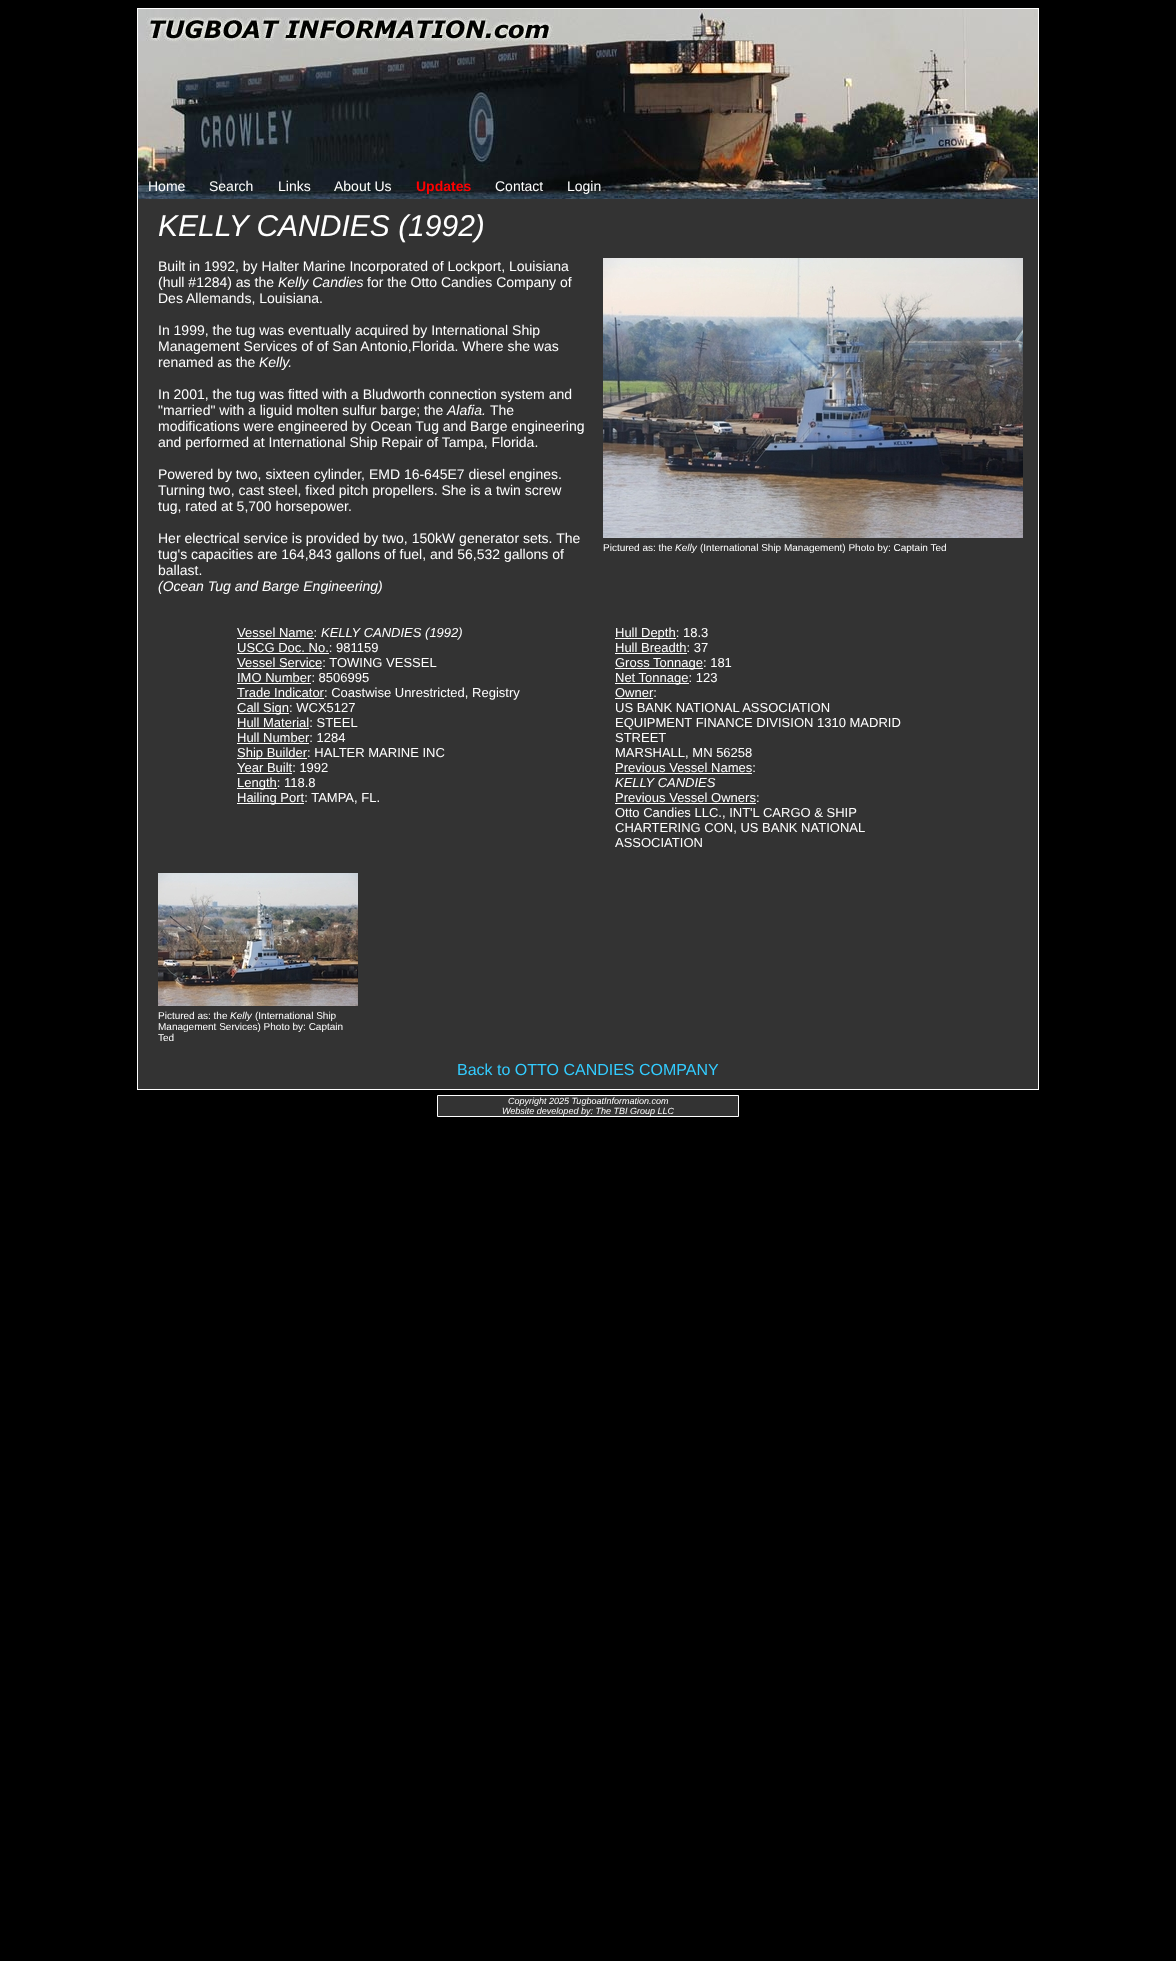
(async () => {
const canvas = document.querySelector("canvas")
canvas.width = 1176
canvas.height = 1961
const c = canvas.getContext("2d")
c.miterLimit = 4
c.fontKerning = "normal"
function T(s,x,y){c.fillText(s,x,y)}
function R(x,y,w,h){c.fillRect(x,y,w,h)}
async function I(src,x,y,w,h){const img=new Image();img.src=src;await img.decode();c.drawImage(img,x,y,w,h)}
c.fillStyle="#000"
R(0,0,1176,1961)
await I("1.png",138,9,900,190)
c.fillStyle="#fff"
R(137,8,902,1)
R(1038,8,1,191)
R(137,8,1,191)
c.font="14px Liberation Sans"
T("Home",148,191)
T("Search",209,191)
T("Links",278,191)
T("About Us",334,191)
c.font="bold 14px Liberation Sans"
c.fillStyle="#f00"
T("Updates",416,191)
c.font="14px Liberation Sans"
c.fillStyle="#fff"
T("Contact",495,191)
T("Login",567,191)
c.fillStyle="#333"
R(138,199,900,890)
c.fillStyle="#fff"
R(1038,199,1,891)
R(137,1089,902,1)
R(137,199,1,891)
c.font="italic 30px Liberation Sans"
T("KELLY CANDIES (1992)",158,236)
c.font="14px Liberation Sans"
T("Built in 1992, by Halter Marine Incorporated of Lockport, Louisiana",158,271)
T("(hull #1284) as the",158,287)
c.font="italic 14px Liberation Sans"
T("Kelly Candies",278,287)
c.font="14px Liberation Sans"
T("for the Otto Candies Company of",367,287)
T("Des Allemands, Louisiana.",158,303)
T("In 1999, the tug was eventually acquired by International Ship",158,335)
T("Management Services of of San Antonio,Florida. Where she was",158,351)
T("renamed as the",158,367)
c.font="italic 14px Liberation Sans"
T("Kelly.",259,367)
c.font="14px Liberation Sans"
T("In 2001, the tug was fitted with a Bludworth connection system and",158,399)
T("\"married\" with a liguid molten sulfur barge; the",158,415)
c.font="italic 14px Liberation Sans"
T("Alafia.",447,415)
c.font="14px Liberation Sans"
T("The",490,415)
T("modifications were engineered by Ocean Tug and Barge engineering",158,431)
T("and performed at International Ship Repair of Tampa, Florida.",158,447)
T("Powered by two, sixteen cylinder, EMD 16-645E7 diesel engines.",158,479)
T("Turning two, cast steel, fixed pitch propellers. She is a twin screw",158,495)
T("tug, rated at 5,700 horsepower.",158,511)
T("Her electrical service is provided by two, 150kW generator sets. The",158,543)
T("tug's capacities are 164,843 gallons of fuel, and 56,532 gallons of",158,559)
T("ballast.",158,575)
c.font="italic 14px Liberation Sans"
T("(Ocean Tug and Barge Engineering)",158,591)
await I("2.png",603,258,420,280)
c.font="10px Liberation Sans"
T("Pictured as: the",603,551)
c.font="italic 10px Liberation Sans"
T("Kelly",675,551)
c.font="10px Liberation Sans"
T("(International Ship Management) Photo by: Captain Ted",700,551)
c.font="13px Liberation Sans"
T("Vessel Name:",237,637)
R(237,638,77,1)
c.font="italic 13px Liberation Sans"
T("KELLY CANDIES (1992)",321,637)
c.font="13px Liberation Sans"
T("USCG Doc. No.: 981159",237,652)
R(237,653,92,1)
T("Vessel Service: TOWING VESSEL",237,667)
R(237,668,85,1)
T("IMO Number: 8506995",237,682)
R(237,683,74,1)
R(237,698,87,1)
T("Trade Indicator: Coastwise Unrestricted, Registry",237,697)
R(237,713,52,1)
T("Call Sign: WCX5127",237,712)
T("Hull Material: STEEL",237,727)
R(237,728,72,1)
T("Hull Number: 1284",237,742)
R(237,743,72,1)
R(237,758,70,1)
T("Ship Builder: HALTER MARINE INC",237,757)
T("Year Built: 1992",237,772)
R(237,773,55,1)
R(237,788,40,1)
T("Length: 118.8",237,787)
R(237,803,67,1)
T("Hailing Port: TAMPA, FL.",237,802)
R(615,638,61,1)
T("Hull Depth: 18.3",615,637)
T("Hull Breadth: 37",615,652)
R(615,653,72,1)
R(615,668,88,1)
T("Gross Tonnage: 181",615,667)
R(615,683,74,1)
T("Net Tonnage: 123",615,682)
T("Owner:",615,697)
R(615,698,38,1)
T("US BANK NATIONAL ASSOCIATION",615,712)
T("EQUIPMENT FINANCE DIVISION 1310 MADRID",615,727)
T("STREET",615,742)
T("MARSHALL, MN 56258",615,757)
T("Previous Vessel Names:",615,772)
R(615,773,137,1)
c.font="italic 13px Liberation Sans"
T("KELLY CANDIES",615,787)
c.font="13px Liberation Sans"
T("Previous Vessel Owners:",615,802)
R(615,803,141,1)
T("Otto Candies LLC., INT'L CARGO & SHIP",615,817)
T("CHARTERING CON, US BANK NATIONAL",615,832)
T("ASSOCIATION",615,847)
await I("3.png",158,873,200,133)
c.font="10px Liberation Sans"
T("Pictured as: the",158,1019)
c.font="italic 10px Liberation Sans"
T("Kelly",230,1019)
c.font="10px Liberation Sans"
T("(International Ship",255,1019)
T("Management Services) Photo by: Captain",158,1030)
T("Ted",158,1041)
c.font="16px Liberation Sans"
c.fillStyle="#3cf"
T("Back to OTTO CANDIES COMPANY",457,1075)
c.fillStyle="#333"
c.beginPath()
c.rect(437.5,1095.5,301,21)
c.fill()
c.strokeStyle="#fff"
c.stroke()
c.font="italic 9px Liberation Sans"
c.fillStyle="#fff"
T("Copyright 2025 TugboatInformation.com",508,1104)
T("Website developed by: The TBI Group LLC",502,1114)
})()
